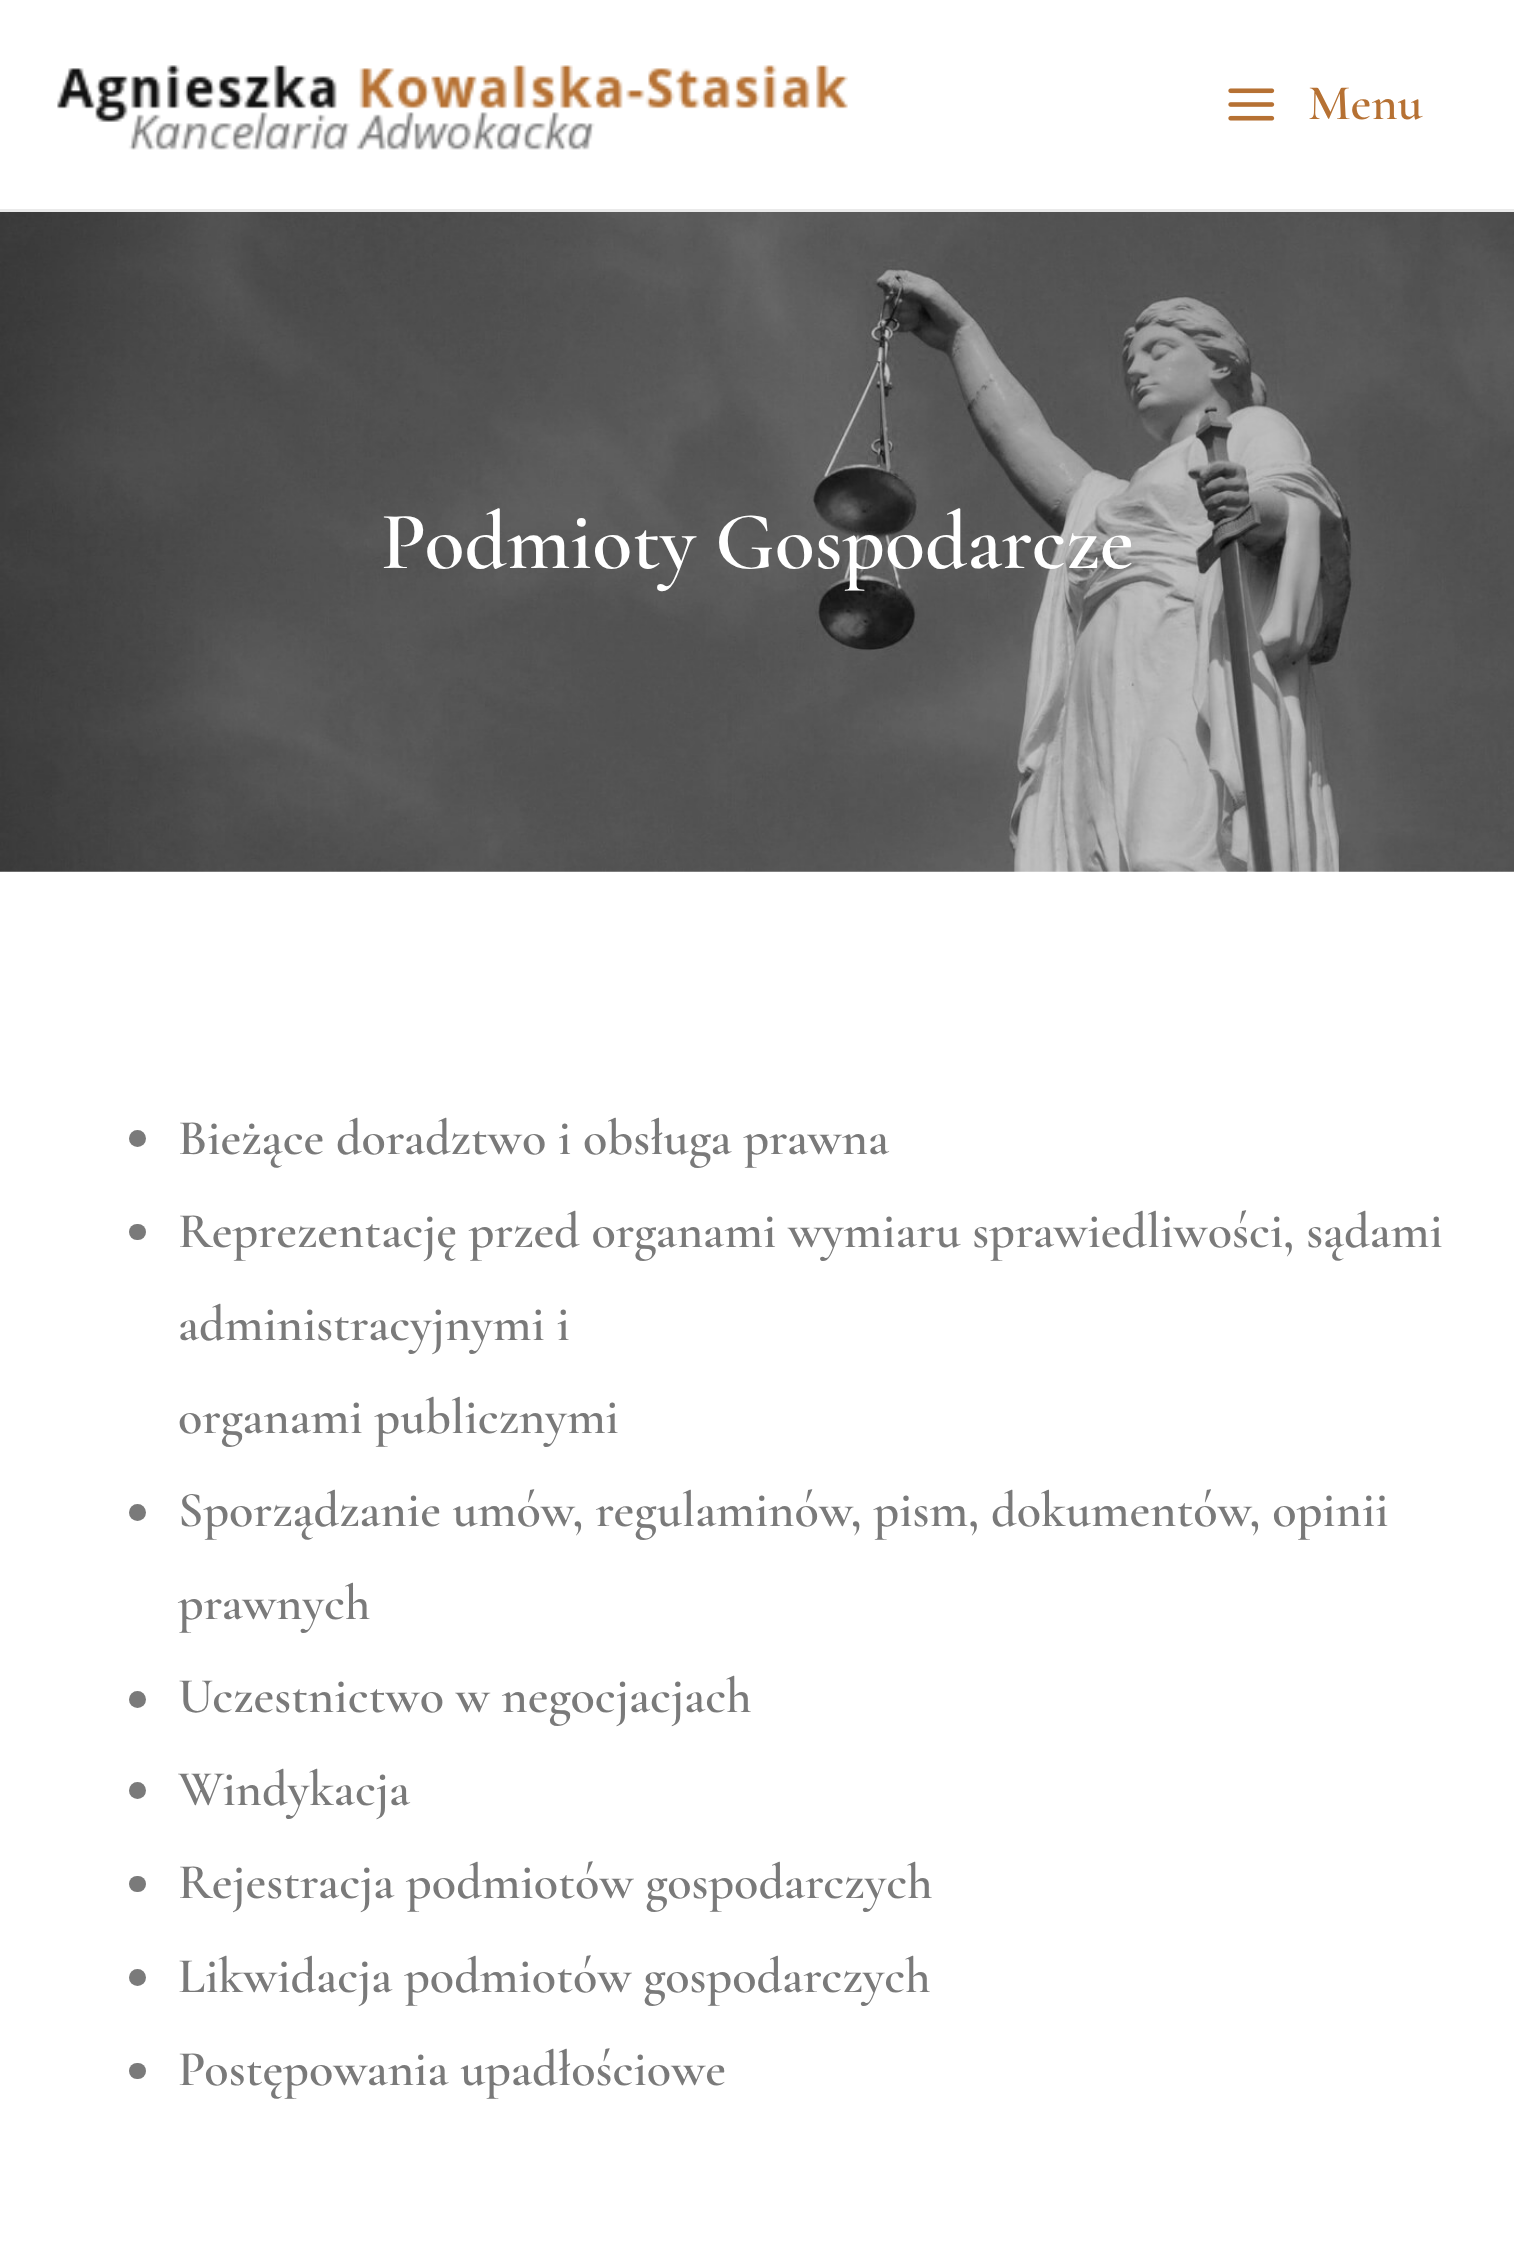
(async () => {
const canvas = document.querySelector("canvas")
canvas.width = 1514
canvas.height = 2243
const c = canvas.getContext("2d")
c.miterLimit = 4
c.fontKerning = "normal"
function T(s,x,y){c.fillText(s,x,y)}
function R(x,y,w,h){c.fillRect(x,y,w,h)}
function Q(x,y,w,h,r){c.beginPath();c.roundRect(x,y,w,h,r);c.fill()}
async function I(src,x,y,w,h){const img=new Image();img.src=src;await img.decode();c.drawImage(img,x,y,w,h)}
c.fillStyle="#fff"
R(0,0,1514,2243)
c.fillStyle="#eaeaea"
R(0,209,1514,3)
await I("1.png",57,65,791,85)
await I("2.png",1228,88,47,33)
c.font="600 50.15px Cormorant Garamond"
c.fillStyle="#b67133"
T("Menu",1308,119)
await I("3.png",0,212,1514,660)
c.font="600 82.5px Cormorant Garamond"
c.fillStyle="#fff"
T("Podmioty Gospodarcze",381,568)
c.fillStyle="#7a7a7a"
c.beginPath()
c.arc(137.5,1138.5,8.5,0,7)
c.fill()
c.font="600 50.15px Cormorant Garamond"
T("Bieżące doradztwo i obsługa prawna",178,1154)
Q(129,1224,17,16,8)
T("Reprezentację przed organami wymiaru sprawiedliwości, sądami",178,1247)
T("administracyjnymi i",178,1340)
T("organami publicznymi",178,1433)
c.beginPath()
c.arc(137.5,1512.5,8.5,0,7)
c.fill()
T("Sporządzanie umów, regulaminów, pism, dokumentów, opinii",178,1526)
T("prawnych",178,1619)
c.beginPath()
c.arc(137.5,1699.5,8.5,0,7)
c.fill()
T("Uczestnictwo w negocjacjach",178,1712)
c.beginPath()
c.arc(137.5,1790.5,8.5,0,7)
c.fill()
T("Windykacja",178,1805)
Q(129,1876,17,16,8)
T("Rejestracja podmiotów gospodarczych",178,1898)
c.beginPath()
c.arc(137.5,1977.5,8.5,0,7)
c.fill()
T("Likwidacja podmiotów gospodarczych",178,1992)
Q(129,2063,17,16,8)
T("Postępowania upadłościowe",178,2085)
})()
